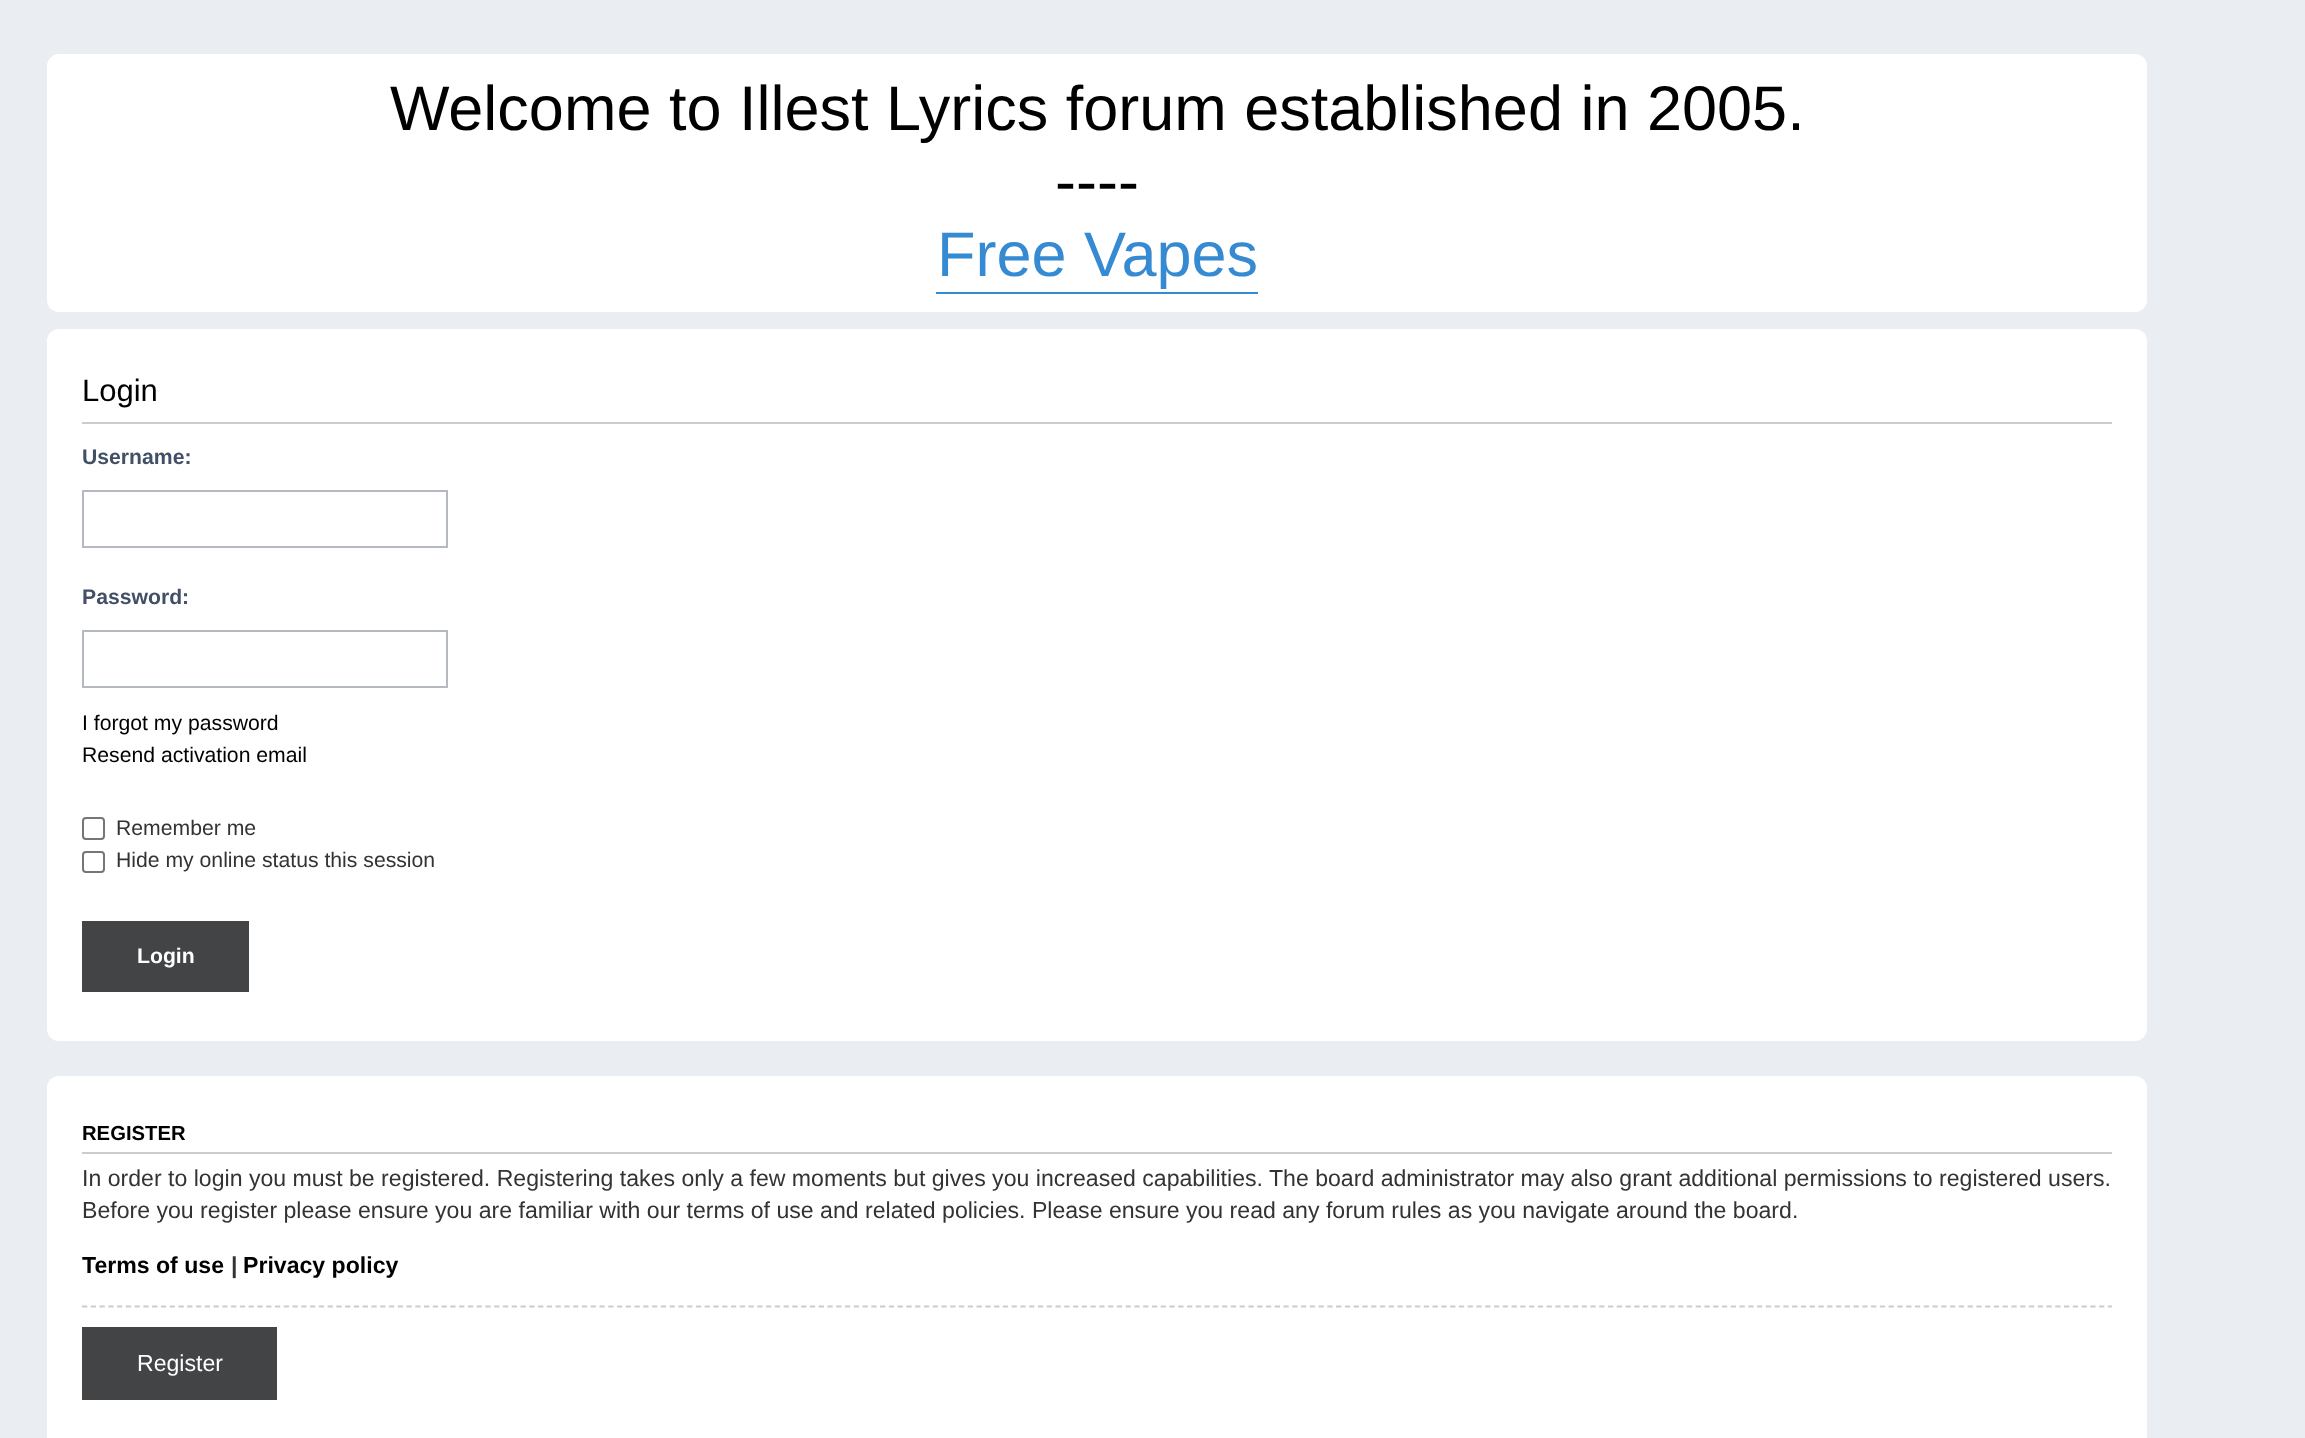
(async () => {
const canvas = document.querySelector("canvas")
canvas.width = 2305
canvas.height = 1438
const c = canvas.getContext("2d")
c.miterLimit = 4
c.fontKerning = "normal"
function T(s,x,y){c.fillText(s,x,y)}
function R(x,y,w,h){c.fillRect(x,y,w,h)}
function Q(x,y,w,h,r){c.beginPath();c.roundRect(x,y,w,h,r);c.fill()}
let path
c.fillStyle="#eaedf1"
R(0,0,2305,1438)
c.fillStyle="#fff"
Q(47,54,2100,258,12)
c.font="63px Liberation Sans"
c.fillStyle="#000"
T("Welcome to Illest Lyrics forum established in 2005.",390,130)
T("----",1055,203)
c.fillStyle="#368ad2"
R(936,292,322,2)
T("Free Vapes",937,276)
c.fillStyle="#fff"
Q(47,329,2100,712,12)
c.fillStyle="#ccc"
R(82,422,2030,2)
c.font="31px Liberation Sans"
c.fillStyle="#000"
T("Login",82,401)
c.font="bold 21.2px Liberation Sans"
c.fillStyle="#425067"
T("Username:",82,464)
c.strokeStyle="#b4bac0"
c.lineWidth=2
c.strokeRect(83,491,364,56)
T("Password:",82,604)
c.strokeRect(83,631,364,56)
c.font="21.2px Liberation Sans"
c.fillStyle="#000"
T("I forgot my password",82,730)
T("Resend activation email",82,762)
c.beginPath()
c.roundRect(83,818,21,21,3)
c.strokeStyle="#767676"
c.stroke()
c.fillStyle="#333"
T("Remember me",116,835)
c.beginPath()
c.roundRect(83,852,21,20,3)
c.stroke()
T("Hide my online status this session",116,867)
c.fillStyle="#434446"
R(82,921,167,71)
c.font="bold 21.2px Liberation Sans"
c.fillStyle="#fff"
T("Login",137,963)
Q(47,1076,2100,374,12)
c.fillStyle="#ccc"
R(82,1152,2030,2)
c.font="bold 20.25px Liberation Sans"
c.fillStyle="#000"
T("REGISTER",82,1140)
c.font="23.1px Liberation Sans"
c.fillStyle="#333"
T("In order to login you must be registered. Registering takes only a few moments but gives you increased capabilities. The board administrator may also grant additional permissions to registered users.",82,1186)
T("Before you register please ensure you are familiar with our terms of use and related policies. Please ensure you read any forum rules as you navigate around the board.",82,1218)
c.font="bold 23.1px Liberation Sans"
c.fillStyle="#000"
T("Terms of use",82,1273)
c.fillStyle="#333"
T("|",231,1273)
c.fillStyle="#000"
T("Privacy policy",243,1273)
path = new Path2D("M82 1306.5h2030")
c.strokeStyle="#ccc"
c.lineWidth=1.8
c.setLineDash([5.25,3.52])
c.stroke(path)
c.fillStyle="#434446"
R(82,1327,195,73)
c.font="23.1px Liberation Sans"
c.fillStyle="#fff"
T("Register",137,1371)
})()
